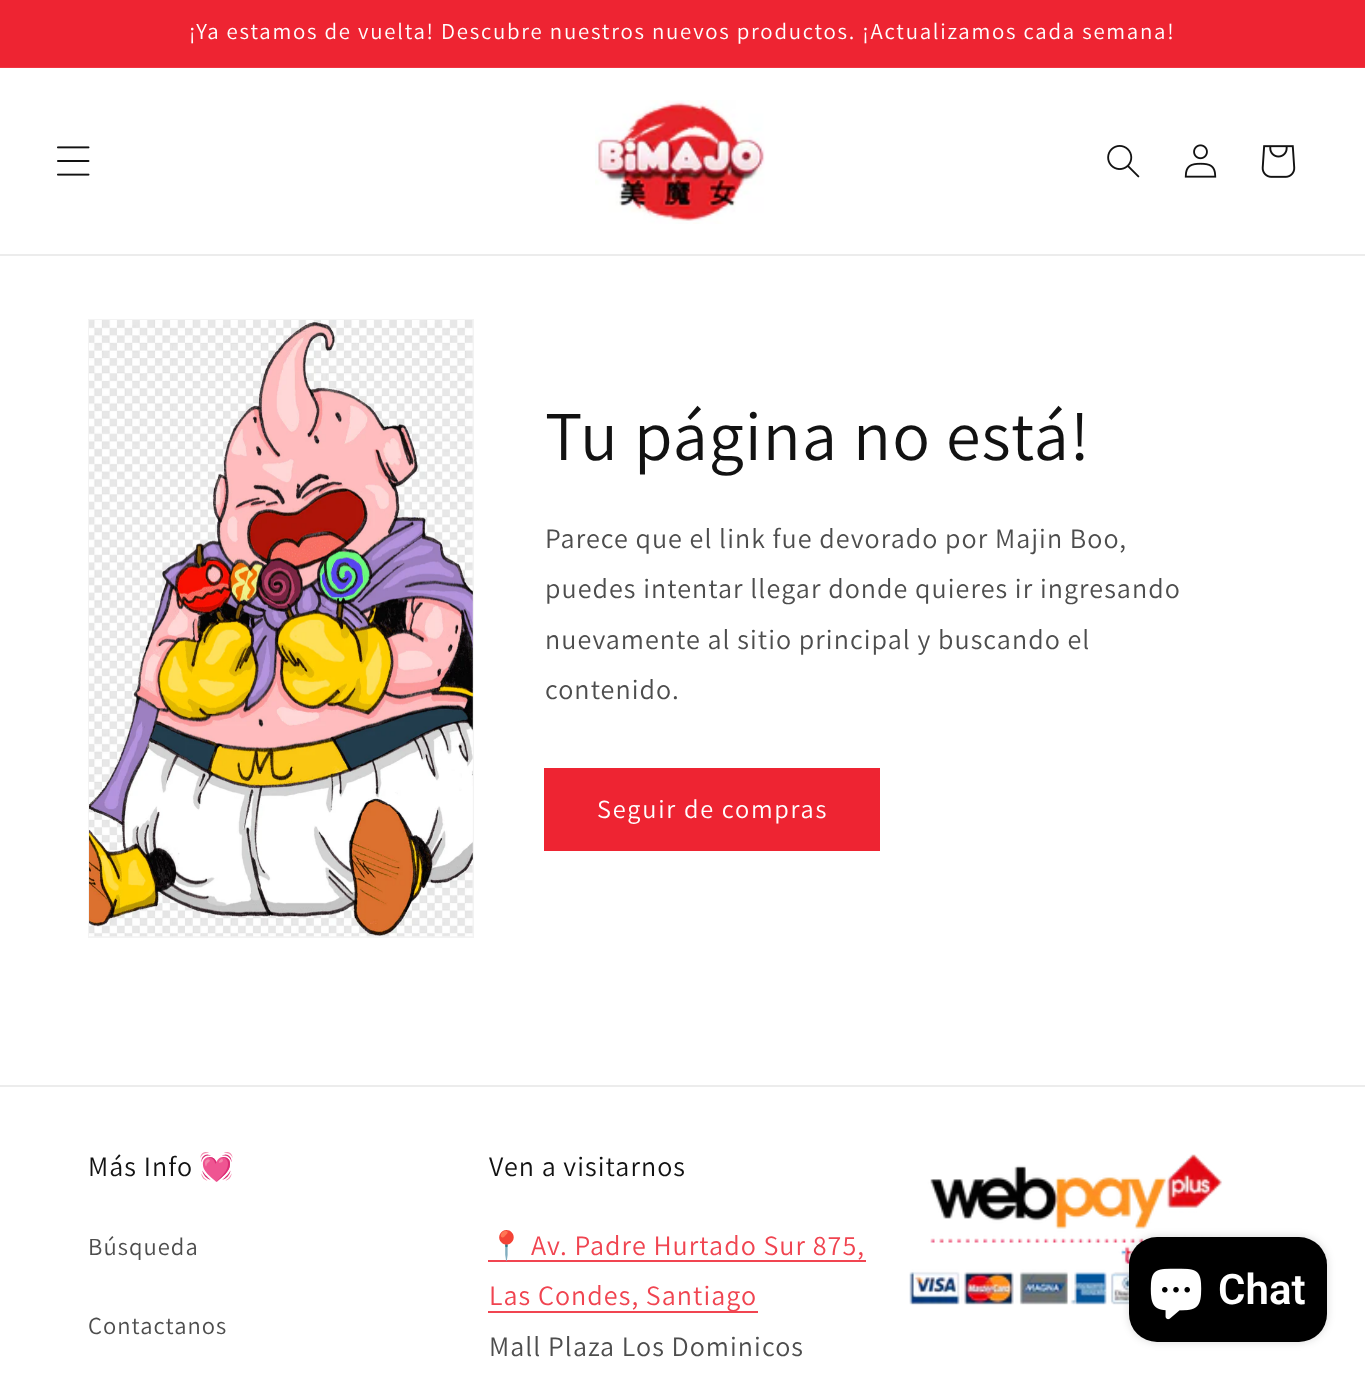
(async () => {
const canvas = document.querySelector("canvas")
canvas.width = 1365
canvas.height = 1379
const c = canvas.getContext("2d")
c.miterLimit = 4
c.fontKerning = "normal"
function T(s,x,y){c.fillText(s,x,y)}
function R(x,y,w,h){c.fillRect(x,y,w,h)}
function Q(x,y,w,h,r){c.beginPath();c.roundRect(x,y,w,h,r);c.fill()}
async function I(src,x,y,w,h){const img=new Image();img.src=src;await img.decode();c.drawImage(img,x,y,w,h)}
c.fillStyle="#fff"
R(0,0,1365,1379)
c.fillStyle="#ee2432"
R(0,0,1365,67)
c.fillStyle="#ef3642"
R(0,67,1365,1)
c.letterSpacing="1.75px"
c.font="22.75px Assistant"
c.fillStyle="#fff"
T("¡Ya estamos de vuelta! Descubre nuestros nuevos productos. ¡Actualizamos cada semana!",189,39)
c.fillStyle="#ececec"
R(0,254,1365,2)
await I("1.png",57,146,33,30)
await I("2.png",595,100,170,124)
await I("3.png",1107,145,33,33)
await I("4.png",1184,144,33,34)
await I("5.png",1261,145,35,33)
c.strokeStyle="#f3f3f3"
c.lineWidth=2
c.strokeRect(89,320,384,617)
await I("6.png",89,320,384,617)
c.letterSpacing="1.05px"
c.font="70px Assistant"
c.fillStyle="#121212"
T("Tu página no está!",545,460)
c.font="28px Assistant"
c.fillStyle="#4d4d4d"
T("Parece que el link fue devorado por Majin Boo,",545,548)
T("puedes intentar llegar donde quieres ir ingresando",545,598)
T("nuevamente al sitio principal y buscando el",545,649)
T("contenido.",545,699)
c.fillStyle="#ee2432"
R(544,768,336,83)
c.letterSpacing="1.75px"
c.font="26.25px Assistant"
c.fillStyle="#fff"
T("Seguir de compras",597,818)
c.fillStyle="#ececec"
R(0,1085,1365,2)
c.letterSpacing="1.05px"
c.font="28px Assistant"
c.fillStyle="#121212"
T("Más Info",88,1176)
c.font="28px Noto Color Emoji"
T("💓",199,1176)
c.font="24.5px Assistant"
c.fillStyle="#4d4d4d"
T("Búsqueda",88,1255)
T("Contactanos",88,1334)
c.font="28px Assistant"
c.fillStyle="#121212"
T("Ven a visitarnos",489,1176)
c.fillStyle="#f14551"
R(488,1260,378,2)
c.font="28px Noto Color Emoji"
c.fillStyle="#f04450"
T("📍",489,1255)
c.font="28px Assistant"
T("Av. Padre Hurtado Sur 875,",531,1255)
c.fillStyle="#f14551"
R(488,1311,270,2)
c.fillStyle="#f04450"
T("Las Condes, Santiago",489,1305)
c.fillStyle="#4d4d4d"
T("Mall Plaza Los Dominicos",489,1356)
await I("7.png",909,1154,315,151)
c.fillStyle="#00000026"
c.filter="blur(4.5px)"
c.beginPath()
c.roundRect(1129,1237,198,105,28)
c.fill()
c.filter="none"
c.fillStyle="#000"
Q(1129,1237,198,105,28)
await I("8.png",1150,1268,52,52)
c.letterSpacing="0px"
c.font="600 42px Roboto"
c.fillStyle="#fff"
T("Chat",1218,1304)
})()
